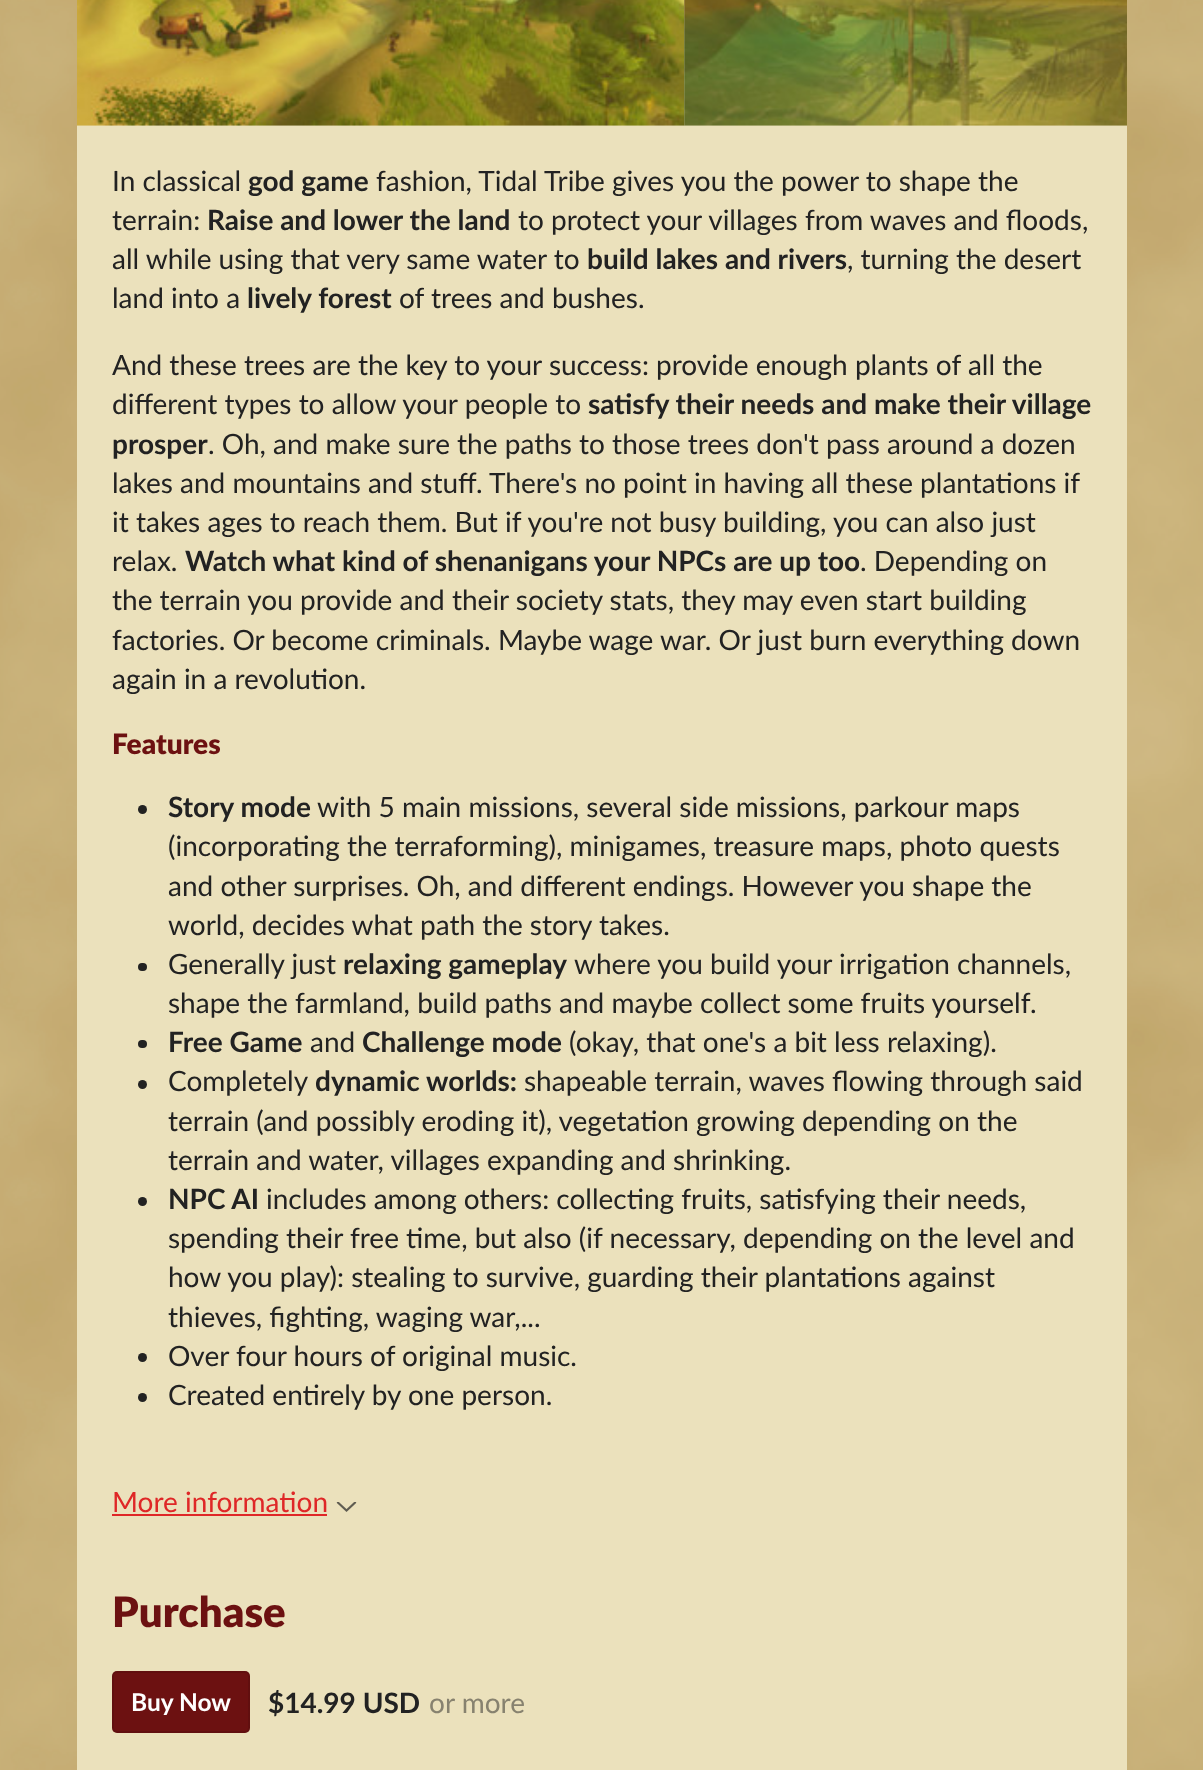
(async () => {
const canvas = document.querySelector("canvas")
canvas.width = 1203
canvas.height = 1770
const c = canvas.getContext("2d")
c.miterLimit = 4
c.fontKerning = "normal"
function T(s,x,y){c.fillText(s,x,y)}
function R(x,y,w,h){c.fillRect(x,y,w,h)}
function Q(x,y,w,h,r){c.beginPath();c.roundRect(x,y,w,h,r);c.fill()}
async function I(src,x,y,w,h){const img=new Image();img.src=src;await img.decode();c.drawImage(img,x,y,w,h)}
c.fillStyle="#fff"
R(0,0,1203,1770)
await I("1.png",0,0,1203,1770)
c.fillStyle="#ebe1bc"
R(77,0,1050,1770)
await I("2.png",77,0,608,126)
await I("3.png",684,0,443,126)
c.font="28px Lato"
c.fillStyle="#222"
T("In classical",112,191)
c.font="bold 28px Lato"
T("god game",248,191)
c.font="28px Lato"
T("fashion, Tidal Tribe gives you the power to shape the",376,191)
T("terrain:",112,230)
c.font="bold 28px Lato"
T("Raise and lower the land",207,230)
c.font="28px Lato"
T("to protect your villages from waves and floods,",518,230)
T("all while using that very same water to",112,269)
c.font="bold 28px Lato"
T("build lakes and rivers",587,269)
c.font="28px Lato"
T(", turning the desert",847,269)
T("land into a",112,308)
c.font="bold 28px Lato"
T("lively forest",247,308)
c.font="28px Lato"
T("of trees and bushes.",399,308)
T("And these trees are the key to your success: provide enough plants of all the",112,375)
T("different types to allow your people to",112,414)
c.font="bold 28px Lato"
T("satisfy their needs and make their village",588,414)
T("prosper",112,454)
c.font="28px Lato"
T(". Oh, and make sure the paths to those trees don't pass around a dozen",208,454)
T("lakes and mountains and stuff. There's no point in having all these plantations if",112,493)
T("it takes ages to reach them. But if you're not busy building, you can also just",112,532)
T("relax.",112,571)
c.font="bold 28px Lato"
T("Watch what kind of shenanigans your NPCs are up too",185,571)
c.font="28px Lato"
T(". Depending on",860,571)
T("the terrain you provide and their society stats, they may even start building",112,610)
T("factories. Or become criminals. Maybe wage war. Or just burn everything down",112,650)
T("again in a revolution.",112,689)
c.font="900 28px Lato"
c.fillStyle="#6c1111"
T("Features",112,754)
c.fillStyle="#222"
c.beginPath()
c.arc(142.5,809.5,4.5,0,7)
c.fill()
c.font="bold 28px Lato"
T("Story mode",168,817)
c.font="28px Lato"
T("with 5 main missions, several side missions, parkour maps",317,817)
T("(incorporating the terraforming), minigames, treasure maps, photo quests",168,856)
T("and other surprises. Oh, and different endings. However you shape the",168,896)
T("world, decides what path the story takes.",168,935)
Q(138,963,9,8,4)
T("Generally just",168,974)
c.font="bold 28px Lato"
T("relaxing gameplay",343,974)
c.font="28px Lato"
T("where you build your irrigation channels,",574,974)
T("shape the farmland, build paths and maybe collect some fruits yourself.",168,1013)
Q(138,1040,9,8,4)
c.font="bold 28px Lato"
T("Free Game",168,1052)
c.font="28px Lato"
T("and",310,1052)
c.font="bold 28px Lato"
T("Challenge mode",362,1052)
c.font="28px Lato"
T("(okay, that one's a bit less relaxing).",569,1052)
c.beginPath()
c.arc(142.5,1084.5,4.5,0,7)
c.fill()
T("Completely",168,1091)
c.font="bold 28px Lato"
T("dynamic worlds:",315,1091)
c.font="28px Lato"
T("shapeable terrain, waves flowing through said",524,1091)
T("terrain (and possibly eroding it), vegetation growing depending on the",168,1131)
T("terrain and water, villages expanding and shrinking.",168,1170)
c.beginPath()
c.arc(142.5,1201.5,4.5,0,7)
c.fill()
c.font="bold 28px Lato"
T("NPC AI",168,1209)
c.font="28px Lato"
T("includes among others: collecting fruits, satisfying their needs,",266,1209)
T("spending their free time, but also (if necessary, depending on the level and",168,1248)
T("how you play): stealing to survive, guarding their plantations against",168,1287)
T("thieves, fighting, waging war,...",168,1327)
c.beginPath()
c.arc(142.5,1357.5,4.5,0,7)
c.fill()
T("Over four hours of original music.",168,1366)
c.beginPath()
c.arc(142.5,1397.5,4.5,0,7)
c.fill()
T("Created entirely by one person.",168,1405)
c.fillStyle="#df2727"
T("More information",112,1512)
R(112,1514,215,2)
await I("4.png",336,1502,21,10)
c.font="900 42px Lato"
c.fillStyle="#6c1111"
T("Purchase",112,1627)
Q(112,1671,138,62,5)
c.beginPath()
c.roundRect(113,1672,136,60,4)
c.strokeStyle="#0000001a"
c.lineWidth=2
c.stroke()
c.font="bold 24.5px Lato"
c.fillStyle="#fff"
T("Buy Now",131,1711)
c.font="bold 28px Lato"
c.fillStyle="#222"
T("$14.99 USD",268,1713)
c.font="28px Lato"
c.fillStyle="#87826f"
T("or more",429,1713)
})()
